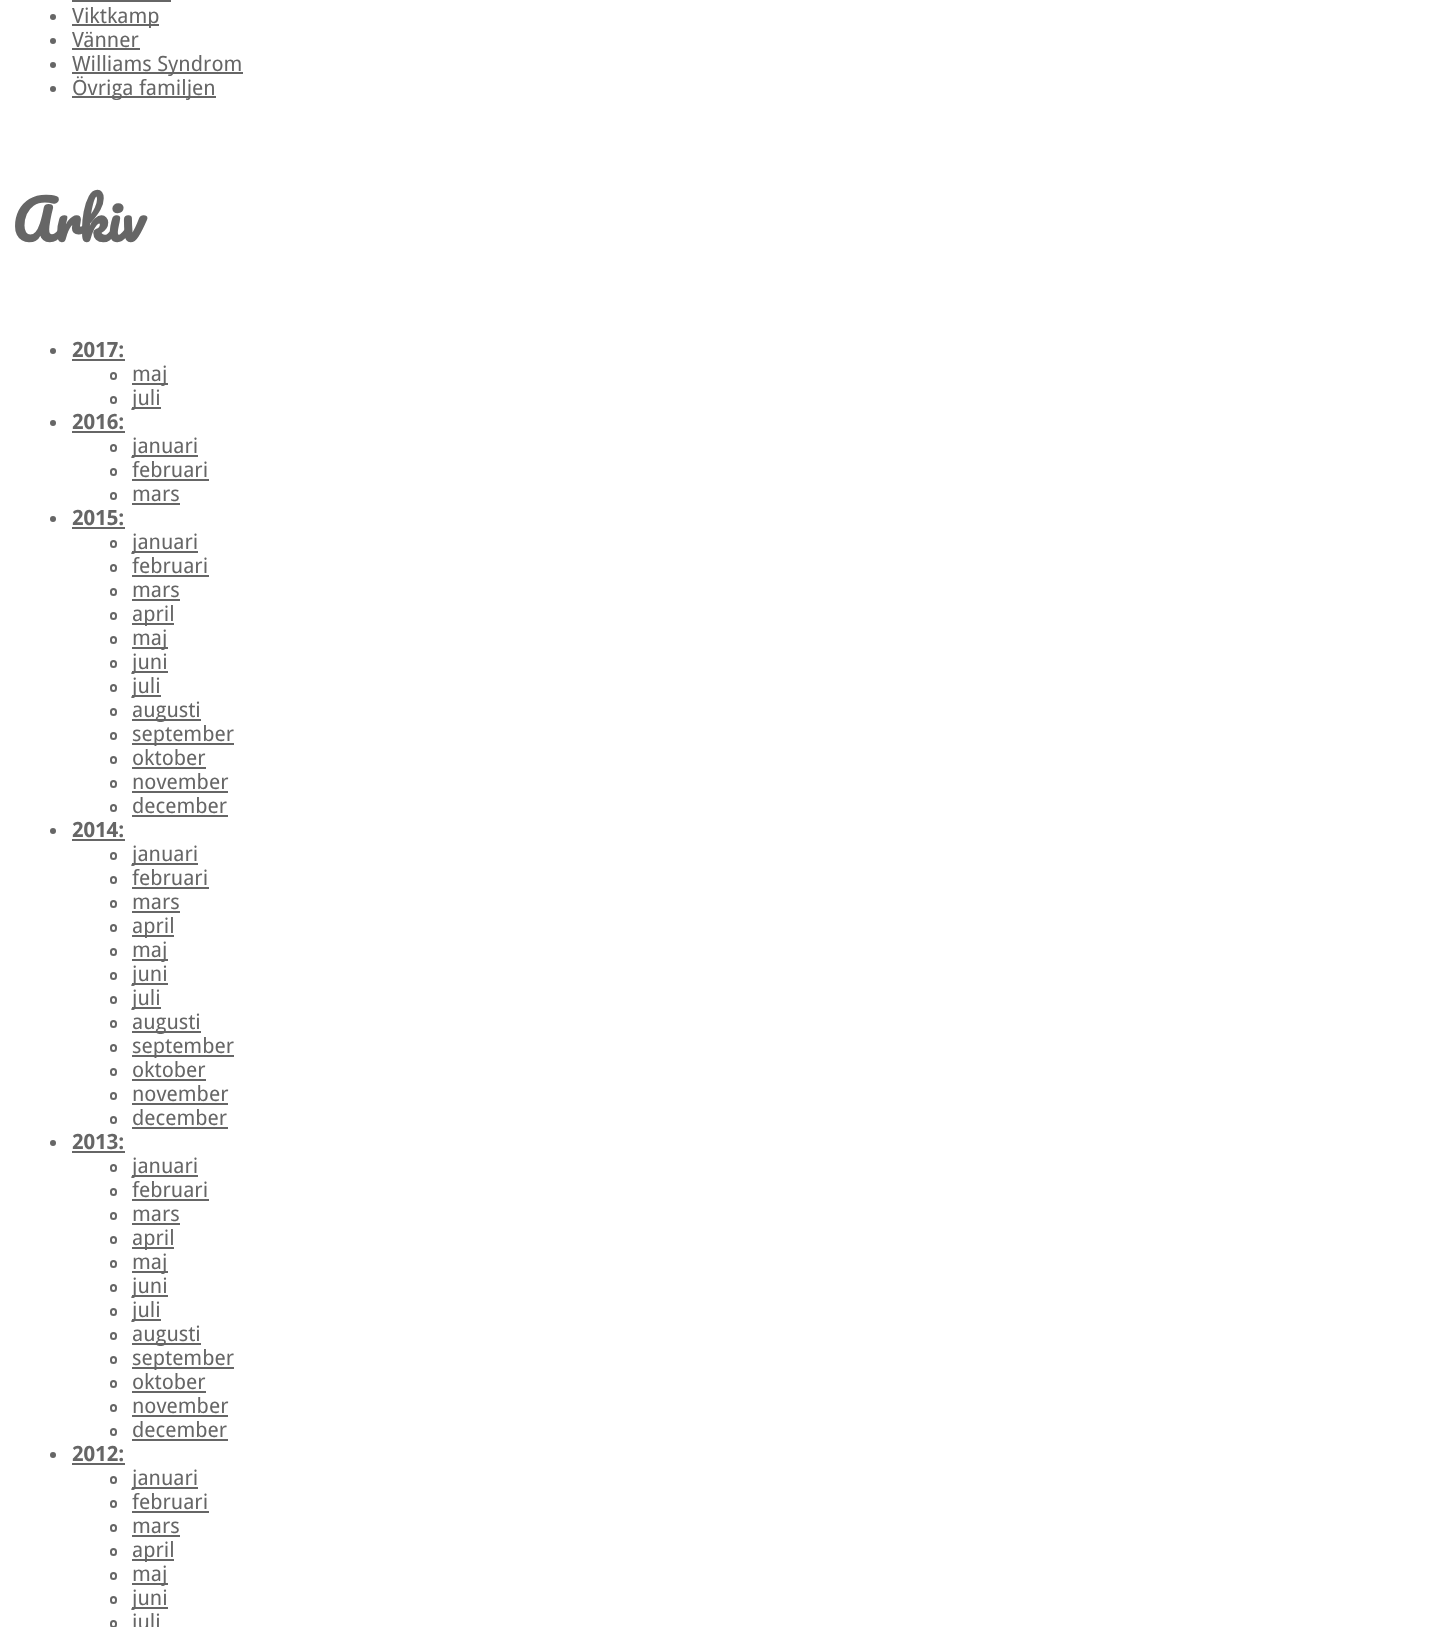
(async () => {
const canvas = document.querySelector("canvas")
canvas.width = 1452
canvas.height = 1627
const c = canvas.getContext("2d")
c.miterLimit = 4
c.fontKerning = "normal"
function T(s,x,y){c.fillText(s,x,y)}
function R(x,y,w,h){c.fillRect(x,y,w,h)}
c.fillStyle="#fff"
R(0,0,1452,1627)
c.fillStyle="#666"
R(72,0,99,2)
c.beginPath()
c.arc(53,17,3,0,7)
c.fill()
R(72,24,87,2)
c.font="21px Droid Sans"
T("Viktkamp",72,23)
c.beginPath()
c.arc(53,41,3,0,7)
c.fill()
T("Vänner",72,47)
R(72,48,68,2)
c.beginPath()
c.arc(53,65,3,0,7)
c.fill()
R(72,72,171,2)
T("Williams Syndrom",72,71)
c.beginPath()
c.arc(53,89,3,0,7)
c.fill()
R(72,96,144,2)
T("Övriga familjen",72,95)
c.font="bold 54px Pacifico"
T("Arkiv",12,242)
c.beginPath()
c.arc(53,351,3,0,7)
c.fill()
c.font="bold 21px Droid Sans"
T("2017:",72,357)
R(72,359,53,2)
c.beginPath()
c.roundRect(111,373,5,6,2.5)
c.strokeStyle="#666"
c.lineWidth=2
c.stroke()
R(132,383,36,2)
c.font="21px Droid Sans"
T("maj",132,381)
c.beginPath()
c.roundRect(111,397,5,6,2.5)
c.stroke()
R(132,407,29,2)
T("juli",132,405)
c.beginPath()
c.arc(53,423,3,0,7)
c.fill()
c.font="bold 21px Droid Sans"
T("2016:",72,429)
R(72,431,53,2)
c.beginPath()
c.roundRect(111,445,5,6,2.5)
c.stroke()
R(132,455,66,2)
c.font="21px Droid Sans"
T("januari",132,453)
c.beginPath()
c.roundRect(111,469,5,6,2.5)
c.stroke()
T("februari",132,477)
R(132,479,77,2)
c.beginPath()
c.roundRect(111,493,5,6,2.5)
c.stroke()
T("mars",132,501)
R(132,503,48,2)
c.beginPath()
c.arc(53,519,3,0,7)
c.fill()
c.font="bold 21px Droid Sans"
T("2015:",72,525)
R(72,527,53,2)
c.beginPath()
c.roundRect(111,541,5,6,2.5)
c.stroke()
R(132,551,66,2)
c.font="21px Droid Sans"
T("januari",132,549)
c.beginPath()
c.roundRect(111,565,5,6,2.5)
c.stroke()
T("februari",132,573)
R(132,575,77,2)
c.beginPath()
c.roundRect(111,589,5,6,2.5)
c.stroke()
T("mars",132,597)
R(132,599,48,2)
c.beginPath()
c.roundRect(111,613,5,6,2.5)
c.stroke()
R(132,623,42,2)
T("april",132,621)
c.beginPath()
c.roundRect(111,637,5,6,2.5)
c.stroke()
R(132,647,36,2)
T("maj",132,645)
c.beginPath()
c.roundRect(111,661,5,6,2.5)
c.stroke()
R(132,671,36,2)
T("juni",132,669)
c.beginPath()
c.roundRect(111,685,5,6,2.5)
c.stroke()
R(132,695,29,2)
T("juli",132,693)
c.beginPath()
c.roundRect(111,709,5,6,2.5)
c.stroke()
R(132,719,69,2)
T("augusti",132,717)
c.beginPath()
c.roundRect(111,733,5,6,2.5)
c.stroke()
R(132,743,102,2)
T("september",132,741)
c.beginPath()
c.roundRect(111,757,5,6,2.5)
c.stroke()
T("oktober",132,765)
R(132,767,74,2)
c.beginPath()
c.roundRect(111,781,5,6,2.5)
c.stroke()
T("november",132,789)
R(132,791,96,2)
c.beginPath()
c.roundRect(111,805,5,6,2.5)
c.stroke()
T("december",132,813)
R(132,815,96,2)
c.beginPath()
c.arc(53,831,3,0,7)
c.fill()
c.font="bold 21px Droid Sans"
T("2014:",72,837)
R(72,839,53,2)
c.beginPath()
c.roundRect(111,853,5,6,2.5)
c.stroke()
R(132,863,66,2)
c.font="21px Droid Sans"
T("januari",132,861)
c.beginPath()
c.roundRect(111,877,5,6,2.5)
c.stroke()
T("februari",132,885)
R(132,887,77,2)
c.beginPath()
c.roundRect(111,901,5,6,2.5)
c.stroke()
T("mars",132,909)
R(132,911,48,2)
c.beginPath()
c.roundRect(111,925,5,6,2.5)
c.stroke()
R(132,935,42,2)
T("april",132,933)
c.beginPath()
c.roundRect(111,949,5,6,2.5)
c.stroke()
R(132,959,36,2)
T("maj",132,957)
c.beginPath()
c.roundRect(111,973,5,6,2.5)
c.stroke()
R(132,983,36,2)
T("juni",132,981)
c.beginPath()
c.roundRect(111,997,5,6,2.5)
c.stroke()
R(132,1007,29,2)
T("juli",132,1005)
c.beginPath()
c.roundRect(111,1021,5,6,2.5)
c.stroke()
R(132,1031,69,2)
T("augusti",132,1029)
c.beginPath()
c.roundRect(111,1045,5,6,2.5)
c.stroke()
R(132,1055,102,2)
T("september",132,1053)
c.beginPath()
c.roundRect(111,1069,5,6,2.5)
c.stroke()
T("oktober",132,1077)
R(132,1079,74,2)
c.beginPath()
c.roundRect(111,1093,5,6,2.5)
c.stroke()
T("november",132,1101)
R(132,1103,96,2)
c.beginPath()
c.roundRect(111,1117,5,6,2.5)
c.stroke()
T("december",132,1125)
R(132,1127,96,2)
c.beginPath()
c.arc(53,1143,3,0,7)
c.fill()
c.font="bold 21px Droid Sans"
T("2013:",72,1149)
R(72,1151,53,2)
c.beginPath()
c.roundRect(111,1165,5,6,2.5)
c.stroke()
R(132,1175,66,2)
c.font="21px Droid Sans"
T("januari",132,1173)
c.beginPath()
c.roundRect(111,1189,5,6,2.5)
c.stroke()
T("februari",132,1197)
R(132,1199,77,2)
c.beginPath()
c.roundRect(111,1213,5,6,2.5)
c.stroke()
T("mars",132,1221)
R(132,1223,48,2)
c.beginPath()
c.roundRect(111,1237,5,6,2.5)
c.stroke()
R(132,1247,42,2)
T("april",132,1245)
c.beginPath()
c.roundRect(111,1261,5,6,2.5)
c.stroke()
R(132,1271,36,2)
T("maj",132,1269)
c.beginPath()
c.roundRect(111,1285,5,6,2.5)
c.stroke()
R(132,1295,36,2)
T("juni",132,1293)
c.beginPath()
c.roundRect(111,1309,5,6,2.5)
c.stroke()
R(132,1319,29,2)
T("juli",132,1317)
c.beginPath()
c.roundRect(111,1333,5,6,2.5)
c.stroke()
R(132,1343,69,2)
T("augusti",132,1341)
c.beginPath()
c.roundRect(111,1357,5,6,2.5)
c.stroke()
R(132,1367,102,2)
T("september",132,1365)
c.beginPath()
c.roundRect(111,1381,5,6,2.5)
c.stroke()
T("oktober",132,1389)
R(132,1391,74,2)
c.beginPath()
c.roundRect(111,1405,5,6,2.5)
c.stroke()
T("november",132,1413)
R(132,1415,96,2)
c.beginPath()
c.roundRect(111,1429,5,6,2.5)
c.stroke()
T("december",132,1437)
R(132,1439,96,2)
c.beginPath()
c.arc(53,1455,3,0,7)
c.fill()
c.font="bold 21px Droid Sans"
T("2012:",72,1461)
R(72,1463,53,2)
c.beginPath()
c.roundRect(111,1477,5,6,2.5)
c.stroke()
R(132,1487,66,2)
c.font="21px Droid Sans"
T("januari",132,1485)
c.beginPath()
c.roundRect(111,1501,5,6,2.5)
c.stroke()
T("februari",132,1509)
R(132,1511,77,2)
c.beginPath()
c.roundRect(111,1525,5,6,2.5)
c.stroke()
T("mars",132,1533)
R(132,1535,48,2)
c.beginPath()
c.roundRect(111,1549,5,6,2.5)
c.stroke()
R(132,1559,42,2)
T("april",132,1557)
c.beginPath()
c.roundRect(111,1573,5,6,2.5)
c.stroke()
R(132,1583,36,2)
T("maj",132,1581)
c.beginPath()
c.roundRect(111,1597,5,6,2.5)
c.stroke()
R(132,1607,36,2)
T("juni",132,1605)
c.beginPath()
c.roundRect(111,1621,5,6,2.5)
c.stroke()
T("juli",132,1629)
})()
